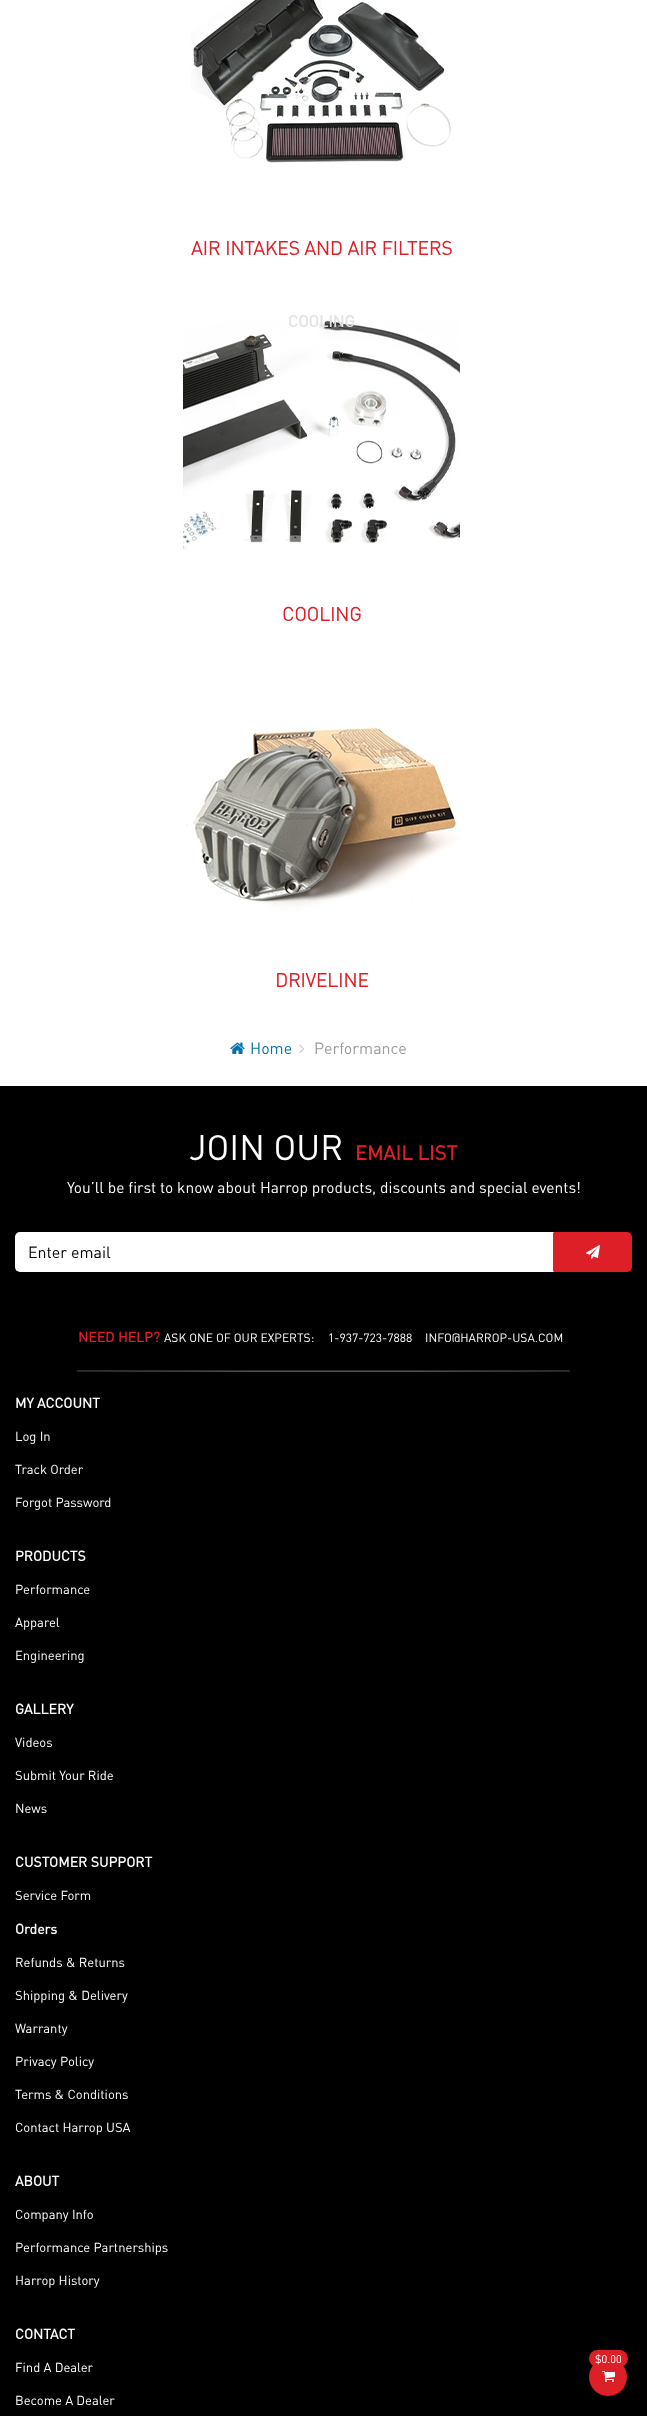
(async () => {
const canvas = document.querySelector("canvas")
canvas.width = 647
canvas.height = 2416
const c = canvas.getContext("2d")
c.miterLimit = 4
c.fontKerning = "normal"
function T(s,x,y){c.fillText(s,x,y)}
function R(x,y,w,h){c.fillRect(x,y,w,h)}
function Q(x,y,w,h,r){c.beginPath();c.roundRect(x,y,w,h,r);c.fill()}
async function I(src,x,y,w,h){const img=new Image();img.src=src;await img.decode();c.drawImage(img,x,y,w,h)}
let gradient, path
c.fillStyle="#fff"
R(0,0,647,2416)
await I("1.png",191,0,260,163)
c.font="bold 19px 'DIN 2'"
c.fillStyle="#dd1f28"
T("AIR INTAKES AND AIR FILTERS",191,255)
await I("2.png",183,320,277,231)
c.font="bold 16px DIN"
c.fillStyle="#e1e1e1"
T("COOLING",288,327)
c.font="bold 19px 'DIN 2'"
c.fillStyle="#dd1f28"
T("COOLING",282,621)
await I("3.png",186,727,274,185)
T("DRIVELINE",275,987)
await I("4.png",230,1042,15,12)
c.font="16px DIN"
c.fillStyle="#0572a9"
T("Home",250,1054)
await I("5.png",299,1044,6,10)
c.fillStyle="#9a9a9a"
T("Performance",314,1054)
c.fillStyle="#000"
R(0,1086,647,1330)
c.font="35px DIN"
c.fillStyle="#fff"
T("JOIN OUR",189,1160)
c.font="bold 20px DIN"
c.fillStyle="#dd1f28"
T("EMAIL LIST",355,1160)
c.font="15.5px DIN"
c.fillStyle="#fff"
T("You’ll be first to know about Harrop products, discounts and special events!",67,1193)
c.beginPath()
c.roundRect(15,1232,539,40,[5,0,0,5])
c.fill()
c.fillStyle="#dd1f28"
path = new Path2D("M554 1232l-1 1v38l1 1z")
c.fill(path)
c.font="16px DIN"
c.fillStyle="#000"
T("Enter email",28,1258)
c.fillStyle="#dd1f28"
c.beginPath()
c.roundRect(554,1232,78,40,[0,5,5,0])
c.fill()
await I("6.png",586,1245,14,14)
c.font="bold 14px DIN"
T("NEED HELP?",78,1342)
c.font="12px DIN"
c.fillStyle="#fff"
T("ASK ONE OF OUR EXPERTS:",164,1342)
T("1-937-723-7888",328,1342)
T("INFO@HARROP-USA.COM",425,1342)
c.fillStyle="#2c2c2c"
R(77,1370,493,1)
gradient = c.createLinearGradient(77,1372,570,1372)
gradient.addColorStop(0,"#222")
gradient.addColorStop(.35,"#505050")
gradient.addColorStop(.7,"#505050")
gradient.addColorStop(1,"#222")
c.fillStyle = gradient
R(77,1371,493,1)
c.font="bold 14px DIN"
c.fillStyle="#fff"
T("MY ACCOUNT",15,1408)
c.font="13px DIN"
T("Log In",15,1441)
T("Track Order",15,1474)
T("Forgot Password",15,1507)
c.font="bold 14px DIN"
T("PRODUCTS",15,1561)
c.font="13px DIN"
T("Performance",15,1594)
T("Apparel",15,1627)
T("Engineering",15,1660)
c.font="bold 14px DIN"
T("GALLERY",15,1714)
c.font="13px DIN"
T("Videos",15,1747)
T("Submit Your Ride",15,1780)
T("News",15,1813)
c.font="bold 14px DIN"
T("CUSTOMER SUPPORT",15,1867)
c.font="13px DIN"
T("Service Form",15,1900)
c.font="bold 14px DIN"
T("Orders",15,1934)
c.font="13px DIN"
T("Refunds & Returns",15,1967)
T("Shipping & Delivery",15,2000)
T("Warranty",15,2033)
T("Privacy Policy",15,2066)
T("Terms & Conditions",15,2099)
T("Contact Harrop USA",15,2132)
c.font="bold 14px DIN"
T("ABOUT",15,2186)
c.font="13px DIN"
T("Company Info",15,2219)
T("Performance Partnerships",15,2252)
T("Harrop History",15,2285)
c.font="bold 14px DIN"
T("CONTACT",15,2339)
c.font="13px DIN"
T("Find A Dealer",15,2372)
T("Become A Dealer",15,2405)
c.fillStyle="#dd1f28"
c.beginPath()
c.arc(608,2377,19,0,7)
c.fill()
Q(589,2350,39,17,8.5)
c.font="11px DIN"
c.fillStyle="#fff"
T("$0.00",595,2363)
await I("7.png",602,2371,13,11)
})()
